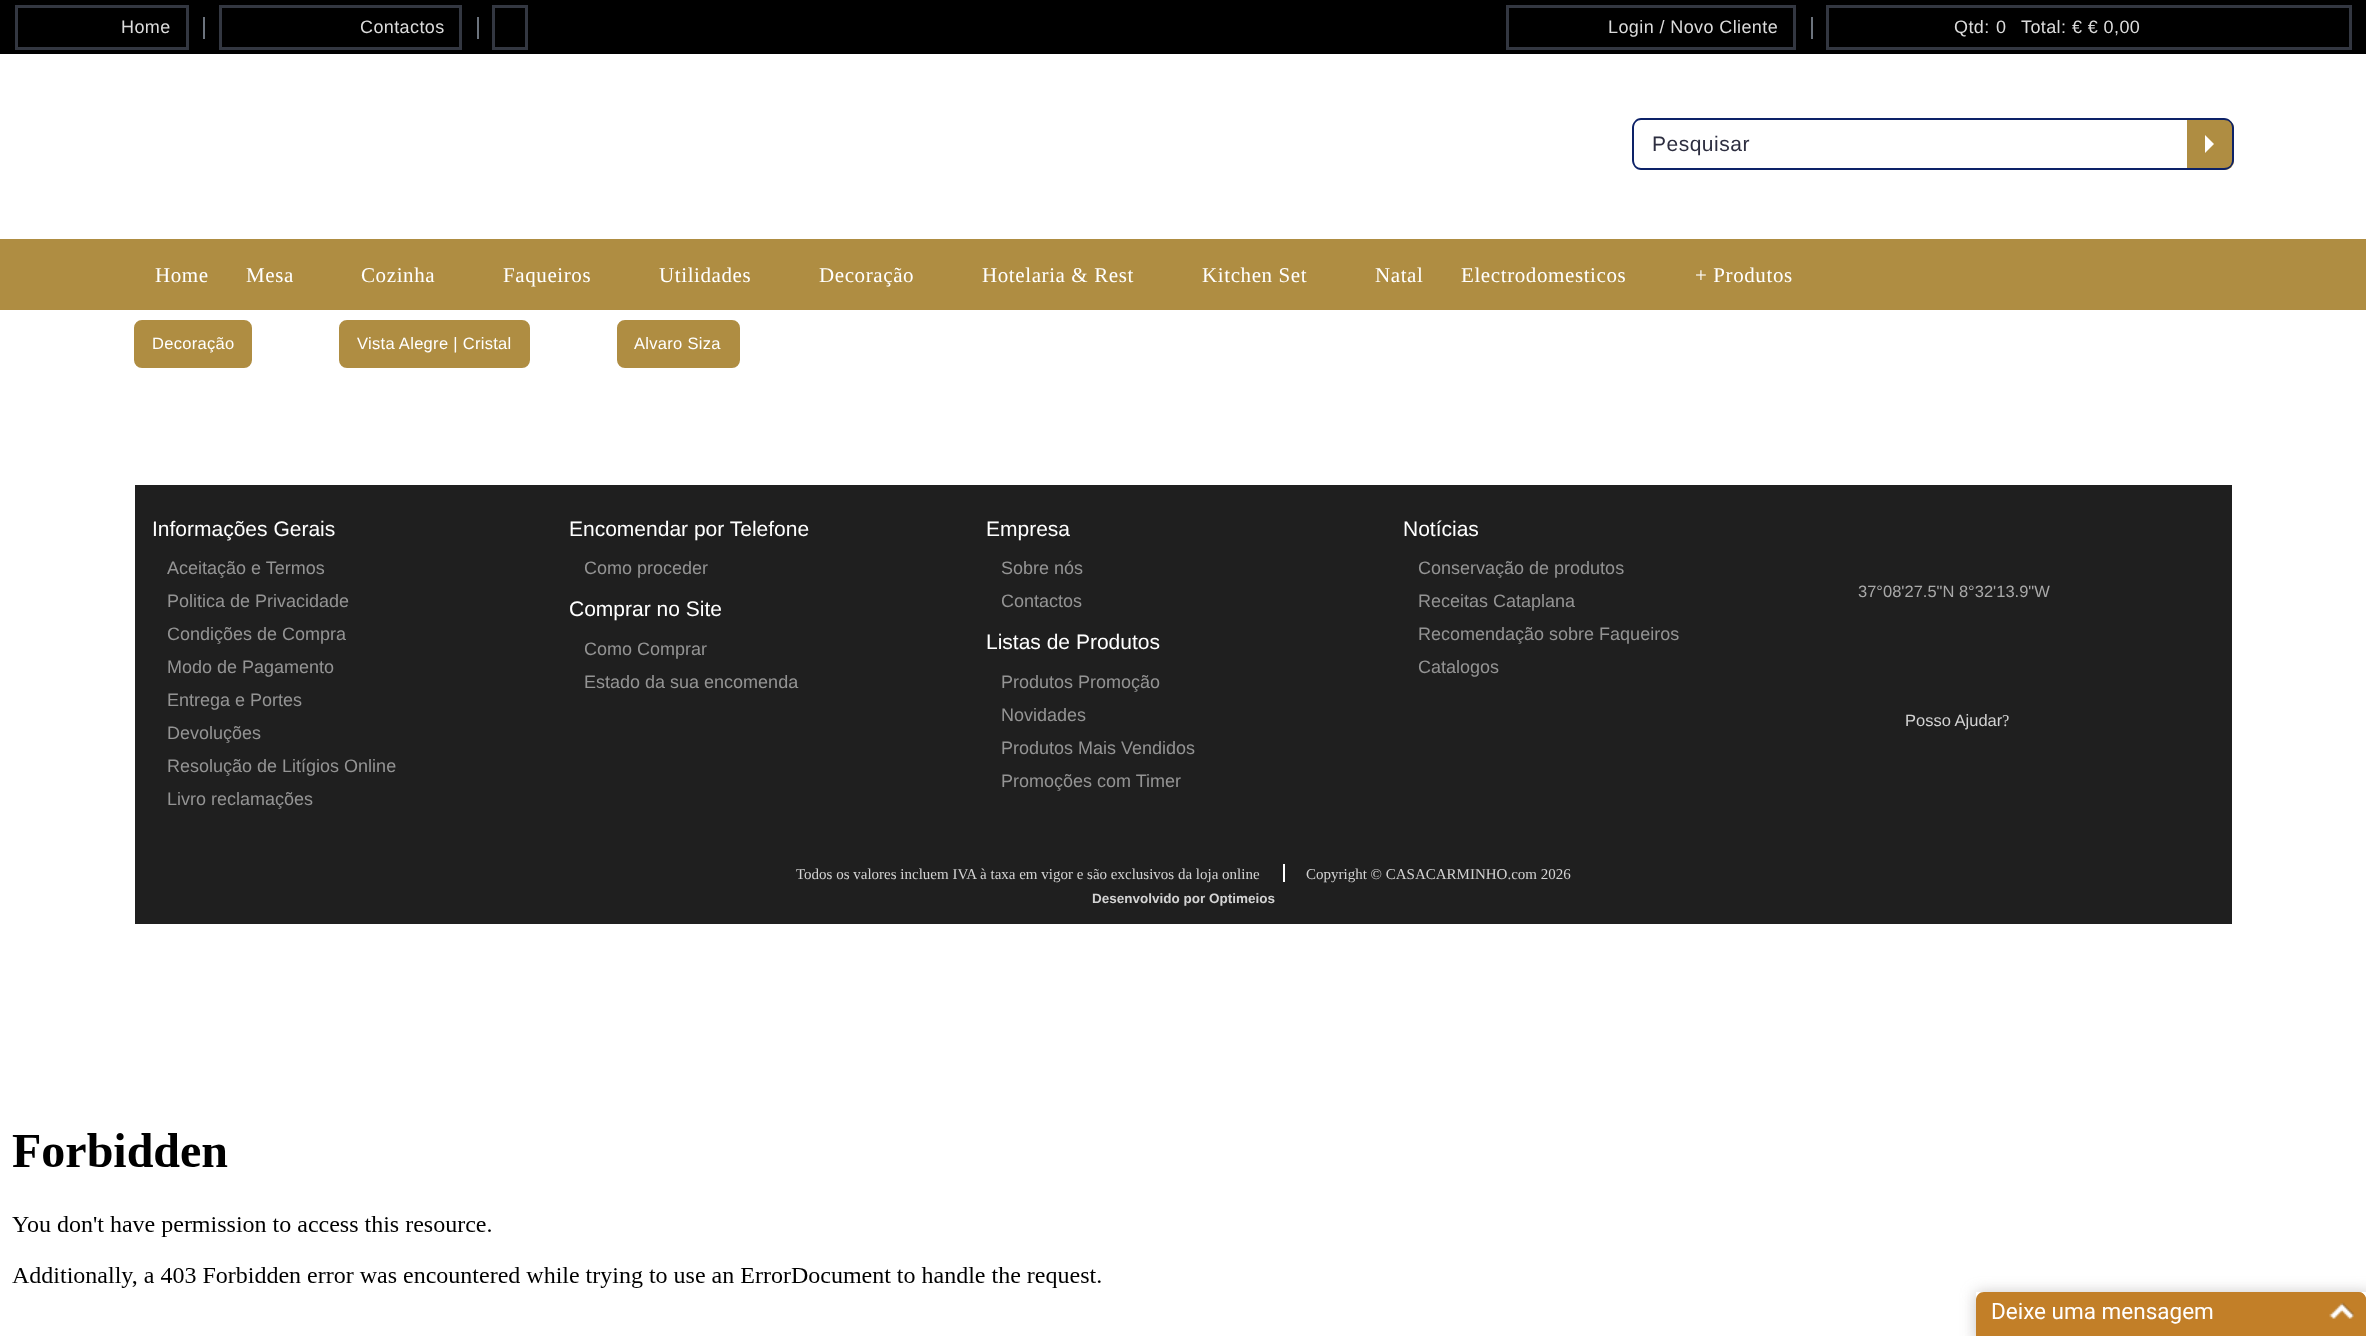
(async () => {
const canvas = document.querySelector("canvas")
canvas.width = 2366
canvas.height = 1336
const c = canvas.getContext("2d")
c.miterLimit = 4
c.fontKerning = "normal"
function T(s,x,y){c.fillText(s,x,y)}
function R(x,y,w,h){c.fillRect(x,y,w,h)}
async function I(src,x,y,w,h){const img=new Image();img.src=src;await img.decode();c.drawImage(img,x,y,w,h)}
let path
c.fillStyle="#fff"
R(0,0,2366,1336)
c.fillStyle="#000"
R(0,0,2366,54)
c.strokeStyle="#333741"
c.lineWidth=3
c.strokeRect(16.5,6.5,171,42)
c.letterSpacing="0.4px"
c.font="18px Liberation Sans"
c.fillStyle="#dbdbdb"
T("Home",121,33)
c.fillStyle="#6c737d"
R(203,17,2,22)
c.strokeRect(220.5,6.5,240,42)
c.fillStyle="#dbdbdb"
T("Contactos",360,33)
c.fillStyle="#6c737d"
R(477,17,2,22)
c.strokeRect(493.5,6.5,33,42)
c.strokeRect(1507.5,6.5,287,42)
c.fillStyle="#dbdbdb"
T("Login / Novo Cliente",1608,33)
c.fillStyle="#6c737d"
R(1811,17,2,22)
c.strokeRect(1827.5,6.5,523,42)
c.fillStyle="#dbdbdb"
T("Qtd:",1954,33)
T("0",1996,33)
T("Total:",2021,33)
T("€ € 0,00",2072,33)
c.fillStyle="#0d2268"
path = new Path2D("M1641 118h546v52h-546c-5 0-9-5-9-10v-32c0-5 4-10 9-10zm0 2h546v48h-546c-4 0-7-3-7-8v-32c0-5 3-8 7-8z")
c.fill(path,"evenodd")
c.letterSpacing="0.5px"
c.font="21px Liberation Sans"
c.fillStyle="#2d2e40"
T("Pesquisar",1652,151)
c.fillStyle="#af8d42"
c.beginPath()
c.roundRect(2187,119,47,51,[0,9,9,0])
c.fill()
c.fillStyle="#0d2268"
path = new Path2D("M2187 118h37c5 0 10 5 10 10v32c0 5-5 10-10 10h-37zm0 2h37c5 0 8 3 8 8v32c0 5-3 8-8 8h-37z")
c.fill(path,"evenodd")
c.fillStyle="#fff"
path = new Path2D("M2205 153v-18l9 9z")
c.fill(path)
c.fillStyle="#af8d42"
R(0,239,2366,71)
c.letterSpacing="0.6px"
c.font="21px Liberation Serif"
c.fillStyle="#fff"
T("Home",155,282)
T("Mesa",246,282)
T("Cozinha",361,282)
T("Faqueiros",503,282)
T("Utilidades",659,282)
T("Decoração",819,282)
T("Hotelaria & Rest",982,282)
T("Kitchen Set",1202,282)
T("Natal",1375,282)
T("Electrodomesticos",1461,282)
T("+ Produtos",1695,282)
c.fillStyle="#af8d42"
c.beginPath()
c.roundRect(135,321,116,46,7)
c.fill()
c.strokeStyle="#af8d42"
c.lineWidth=2
c.stroke()
c.letterSpacing="0.3px"
c.font="16.5px Liberation Sans"
c.fillStyle="#fff"
T("Decoração",152,349)
c.fillStyle="#af8d42"
c.beginPath()
c.roundRect(340,321,189,46,7)
c.fill()
c.stroke()
c.fillStyle="#fff"
T("Vista Alegre | Cristal",357,349)
c.fillStyle="#af8d42"
c.beginPath()
c.roundRect(618,321,121,46,7)
c.fill()
c.stroke()
c.fillStyle="#fff"
T("Alvaro Siza",634,349)
c.fillStyle="#1f1f1f"
R(135,485,2097,439)
c.letterSpacing="0px"
c.font="21px Liberation Sans"
c.fillStyle="#fff"
T("Informações Gerais",152,536)
c.font="18px Liberation Sans"
c.fillStyle="#949494"
T("Aceitação e Termos",167,574)
T("Politica de Privacidade",167,607)
T("Condições de Compra",167,640)
T("Modo de Pagamento",167,673)
T("Entrega e Portes",167,706)
T("Devoluções",167,739)
T("Resolução de Litígios Online",167,772)
T("Livro reclamações",167,805)
c.font="21px Liberation Sans"
c.fillStyle="#fff"
T("Encomendar por Telefone",569,536)
c.font="18px Liberation Sans"
c.fillStyle="#949494"
T("Como proceder",584,574)
c.font="21px Liberation Sans"
c.fillStyle="#fff"
T("Comprar no Site",569,616)
c.font="18px Liberation Sans"
c.fillStyle="#949494"
T("Como Comprar",584,655)
T("Estado da sua encomenda",584,688)
c.font="21px Liberation Sans"
c.fillStyle="#fff"
T("Empresa",986,536)
c.font="18px Liberation Sans"
c.fillStyle="#949494"
T("Sobre nós",1001,574)
T("Contactos",1001,607)
c.font="21px Liberation Sans"
c.fillStyle="#fff"
T("Listas de Produtos",986,649)
c.font="18px Liberation Sans"
c.fillStyle="#949494"
T("Produtos Promoção",1001,688)
T("Novidades",1001,721)
T("Produtos Mais Vendidos",1001,754)
T("Promoções com Timer",1001,787)
c.font="21px Liberation Sans"
c.fillStyle="#fff"
T("Notícias",1403,536)
c.font="18px Liberation Sans"
c.fillStyle="#949494"
T("Conservação de produtos",1418,574)
T("Receitas Cataplana",1418,607)
T("Recomendação sobre Faqueiros",1418,640)
T("Catalogos",1418,673)
c.font="16.5px Liberation Sans"
c.fillStyle="#a9a9a9"
T("37°08'27.5\"N 8°32'13.9\"W",1858,597)
c.fillStyle="#d3d3d3"
T("Posso Ajudar",1905,726)
c.font="16.5px Liberation Serif"
T("?",2002,726)
c.font="15px Liberation Serif"
T("Todos os valores incluem IVA à taxa em vigor e são exclusivos da loja online",796,879)
c.fillStyle="#fff"
R(1283,864,2,18)
c.fillStyle="#d3d3d3"
T("Copyright © CASACARMINHO.com 2026",1306,879)
c.font="bold 13.5px Liberation Sans"
T("Desenvolvido por Optimeios",1092,903)
await I("1.png",12,1133,1089,155)
c.save()
path = new Path2D("M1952 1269h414v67h-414zm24 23h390v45h-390z")
c.clip(path,"evenodd")
c.fillStyle="#8b858580"
c.filter="blur(7.5px)"
c.beginPath()
c.rect(1976,1293,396,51)
c.fill()
c.filter="none"
c.restore()
c.fillStyle="#c27f28"
path = new Path2D("M1984 1292h374c4.5 0 8 3.5 8 8v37h-390v-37c0-4.5 3.5-8 8-8z")
c.fill(path)
c.font="22.5px Roboto"
c.fillStyle="#fff"
T("Deixe uma mensagem",1991,1319)
c.fillStyle="#c27f28"
path = new Path2D("M2321 1292h37c4.5 0 8 3.5 8 8v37h-45z")
c.fill(path)
await I("2.png",2329,1302,25,17)
})()
